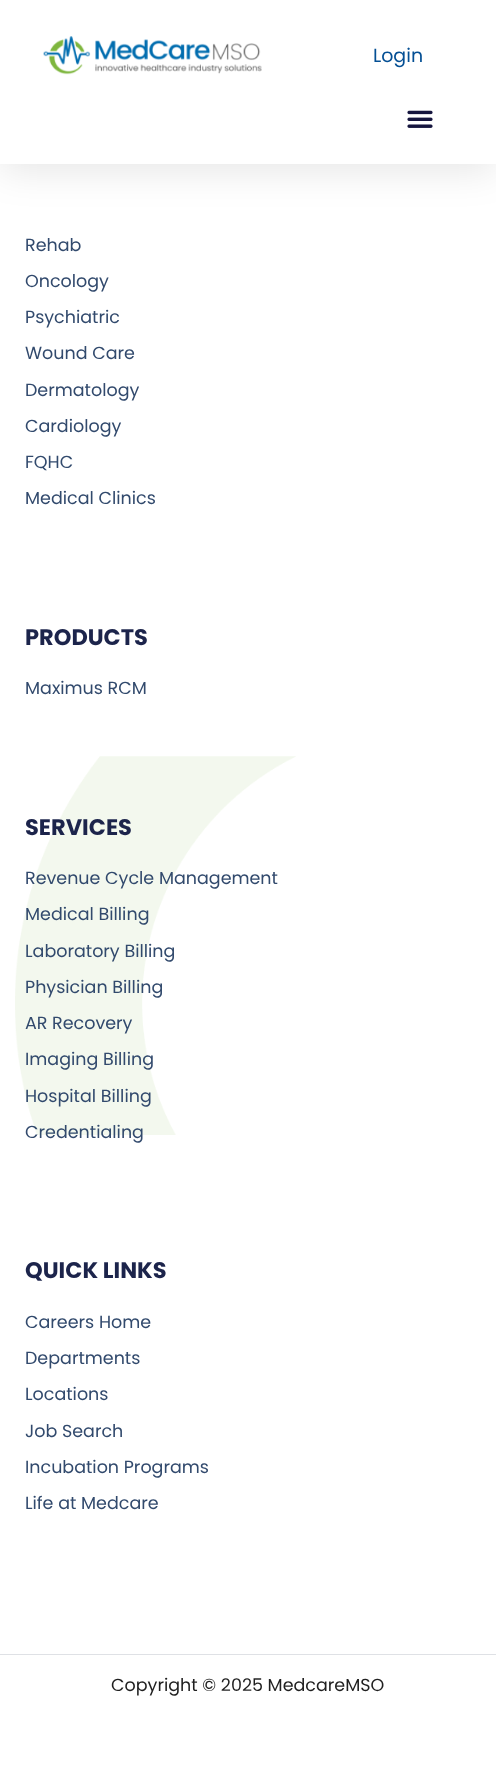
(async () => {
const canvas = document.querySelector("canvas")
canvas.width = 496
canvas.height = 1786
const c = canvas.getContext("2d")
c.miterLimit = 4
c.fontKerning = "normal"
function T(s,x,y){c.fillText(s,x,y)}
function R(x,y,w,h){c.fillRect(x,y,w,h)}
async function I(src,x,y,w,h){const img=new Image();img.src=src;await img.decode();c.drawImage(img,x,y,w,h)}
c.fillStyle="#fff"
R(0,0,496,1786)
c.fillStyle="#0000001a"
c.filter="blur(19px)"
c.beginPath()
c.rect(0,6,496,164)
c.fill()
c.filter="none"
c.fillStyle="#fff"
R(0,0,496,164)
await I("1.png",43,36,219,39)
c.font="19px Poppins"
c.fillStyle="#044f94"
T("Login",373,62)
await I("2.png",407,110,26,18)
c.font="17.5px Poppins"
c.fillStyle="#324a6d"
T("Rehab",25,251)
T("Oncology",25,287)
T("Psychiatric",25,323)
T("Wound Care",25,359)
T("Dermatology",25,396)
T("Cardiology",25,432)
T("FQHC",25,468)
T("Medical Clinics",25,504)
c.font="bold 22.5px Poppins"
c.fillStyle="#1c244b"
T("PRODUCTS",25,645)
c.font="17.5px Poppins"
c.fillStyle="#324a6d"
T("Maximus RCM",25,694)
await I("3.png",15,756,281,379)
c.font="bold 22.5px Poppins"
c.fillStyle="#1c244b"
T("SERVICES",25,835)
c.font="17.5px Poppins"
c.fillStyle="#324a6d"
T("Revenue Cycle Management",25,884)
T("Medical Billing",25,920)
T("Laboratory Billing",25,957)
T("Physician Billing",25,993)
T("AR Recovery",25,1029)
T("Imaging Billing",25,1065)
T("Hospital Billing",25,1102)
T("Credentialing",25,1138)
c.font="bold 22.5px Poppins"
c.fillStyle="#1c244b"
T("QUICK LINKS",25,1278)
c.font="17.5px Poppins"
c.fillStyle="#324a6d"
T("Careers Home",25,1328)
T("Departments",25,1364)
T("Locations",25,1400)
T("Job Search",25,1437)
T("Incubation Programs",25,1473)
T("Life at Medcare",25,1509)
c.fillStyle="#dfe1e5"
R(0,1654,496,1)
c.fillStyle="#1f1f1f"
T("Copyright © 2025 MedcareMSO",111,1691)
})()
